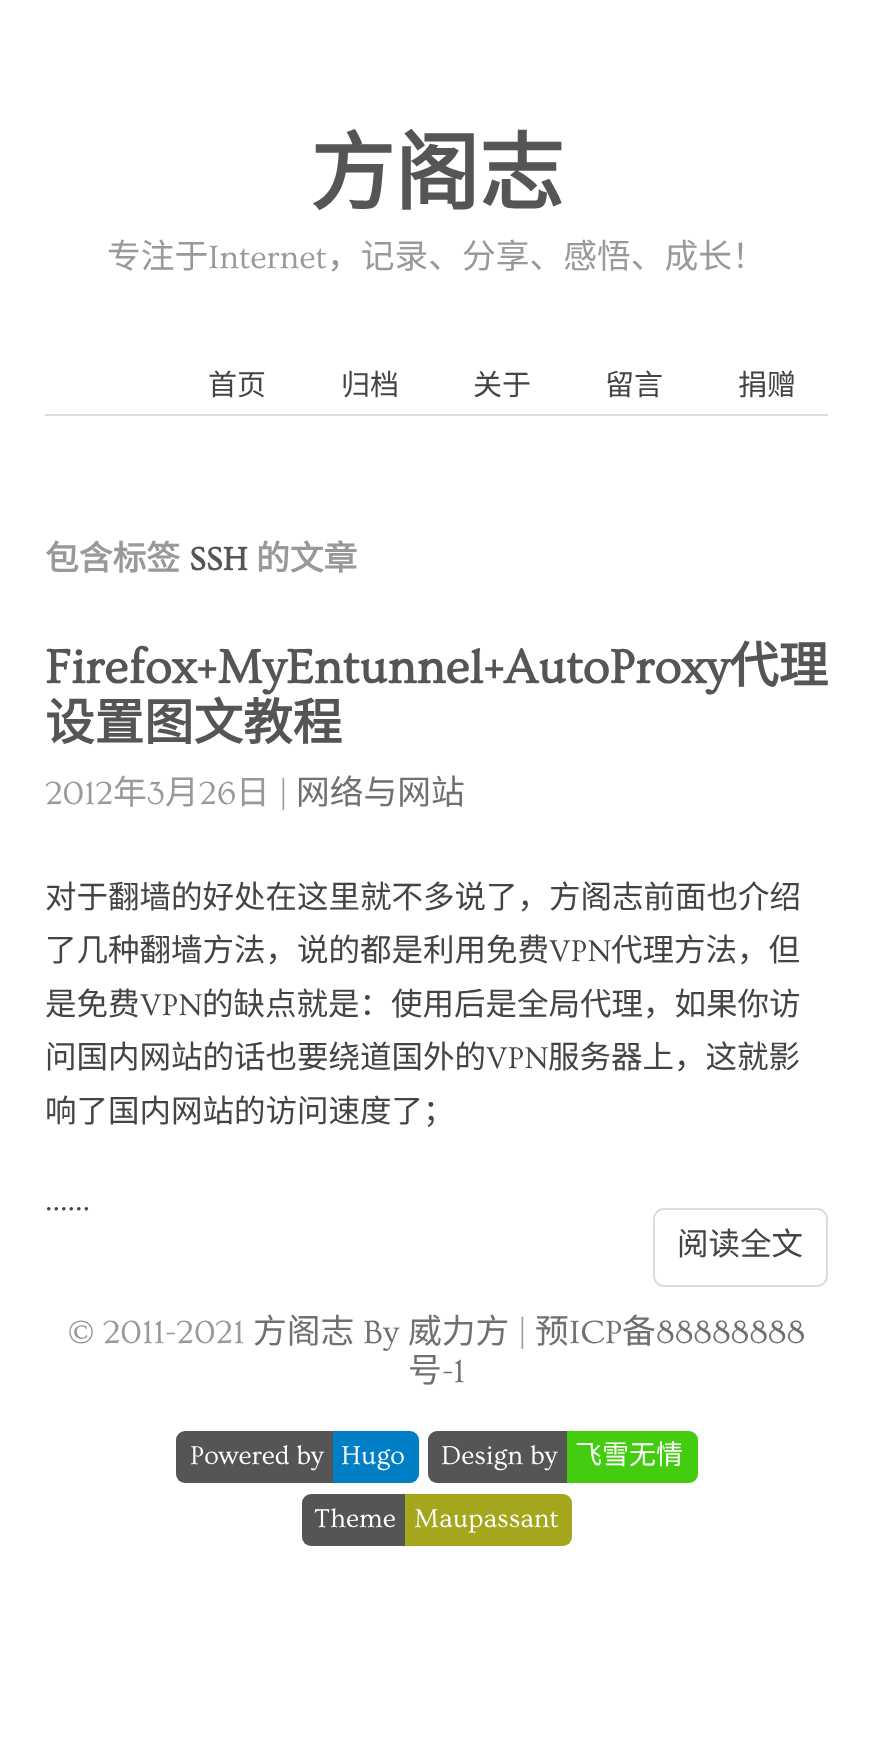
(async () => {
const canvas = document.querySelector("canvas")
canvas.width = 872
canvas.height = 1741
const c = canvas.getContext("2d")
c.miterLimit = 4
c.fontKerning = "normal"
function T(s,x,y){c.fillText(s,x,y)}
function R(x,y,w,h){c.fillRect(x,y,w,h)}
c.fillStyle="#fff"
R(0,0,872,1741)
c.fillStyle="#ddd"
R(45,414,783,2)
c.font="bold 84.5px Noto Sans CJK SC"
c.fillStyle="#555"
T("方阁志",310,203)
c.font="33.75px Noto Sans CJK SC"
c.fillStyle="#999"
T("专注于",107,268)
c.font="33.75px Ovo"
T("Internet",208,268)
c.font="33.75px Noto Sans CJK SC"
T("，记录、分享、感悟、成长！",327,268)
c.font="29px Noto Sans CJK SC"
c.fillStyle="#444"
T("首页",208,395)
T("归档",341,395)
T("关于",473,395)
T("留言",605,395)
T("捐赠",738,395)
c.font="bold 33.75px Noto Sans CJK SC"
c.fillStyle="#999"
T("包含标签",45,570)
c.font="bold 33.75px Ovo"
c.fillStyle="#555"
T("SSH",189,570)
c.font="bold 33.75px Noto Sans CJK SC"
c.fillStyle="#999"
T("的文章",256,570)
c.font="bold 49.5px Ovo"
c.fillStyle="#555"
T("Firefox+MyEntunnel+AutoProxy",45,683)
c.font="bold 49.5px Noto Sans CJK SC"
T("代理",729,683)
T("设置图文教程",45,740)
c.font="33.75px Ovo"
c.fillStyle="#999"
T("2012",45,804)
c.font="33.75px Noto Sans CJK SC"
T("年",113,804)
c.font="33.75px Ovo"
T("3",147,804)
c.font="33.75px Noto Sans CJK SC"
T("月",165,804)
c.font="33.75px Ovo"
T("26",199,804)
c.font="33.75px Noto Sans CJK SC"
T("日",236,804)
c.font="33.75px Ovo"
T("|",279,804)
c.font="33.75px Noto Sans CJK SC"
c.fillStyle="#6e7173"
T("网络与网站",296,804)
c.font="31.5px Noto Sans CJK SC"
c.fillStyle="#444"
T("对于翻墙的好处在这里就不多说了，方阁志前面也介绍",45,908)
T("了几种翻墙方法，说的都是利用免费",45,961)
c.font="31.5px Ovo"
T("VPN",549,961)
c.font="31.5px Noto Sans CJK SC"
T("代理方法，但",611,961)
T("是免费",45,1015)
c.font="31.5px Ovo"
T("VPN",140,1015)
c.font="31.5px Noto Sans CJK SC"
T("的缺点就是：使用后是全局代理，如果你访",202,1015)
T("问国内网站的话也要绕道国外的",45,1068)
c.font="31.5px Ovo"
T("VPN",486,1068)
c.font="31.5px Noto Sans CJK SC"
T("服务器上，这就影",548,1068)
T("响了国内网站的访问速度了；",45,1122)
c.font="31.5px Ovo"
T("……",45,1210)
c.beginPath()
c.roundRect(654,1209,173,77,10)
c.strokeStyle="#ddd"
c.lineWidth=2
c.stroke()
c.font="31.5px Noto Sans CJK SC"
T("阅读全文",677,1255)
c.font="33.75px Ovo"
c.fillStyle="#999"
T("© 2011-2021",68,1343)
c.font="33.75px Noto Sans CJK SC"
c.fillStyle="#6e7173"
T("方阁志",253,1343)
c.font="33.75px Ovo"
T("By",363,1343)
c.font="33.75px Noto Sans CJK SC"
T("威力方",408,1343)
c.font="33.75px Ovo"
c.fillStyle="#999"
T("|",518,1343)
c.font="33.75px Noto Sans CJK SC"
c.fillStyle="#6e7173"
T("预",535,1343)
c.font="33.75px Ovo"
T("ICP",569,1343)
c.font="33.75px Noto Sans CJK SC"
T("备",622,1343)
c.font="33.75px Ovo"
T("88888888",656,1343)
c.font="33.75px Noto Sans CJK SC"
T("号",408,1382)
c.font="33.75px Ovo"
T("-1",442,1382)
c.fillStyle="#555"
c.beginPath()
c.roundRect(176,1431,157,52,[9,0,0,9])
c.fill()
c.font="27px Ovo"
c.fillStyle="#fff"
T("Powered by",190,1464)
c.fillStyle="#007ec6"
c.beginPath()
c.roundRect(333,1431,86,52,[0,9,9,0])
c.fill()
c.fillStyle="#fff"
T("Hugo",341,1464)
c.fillStyle="#555"
c.beginPath()
c.roundRect(428,1431,139,52,[9,0,0,9])
c.fill()
c.fillStyle="#fff"
T("Design by",441,1464)
c.fillStyle="#4c1"
c.beginPath()
c.roundRect(567,1431,131,52,[0,9,9,0])
c.fill()
c.font="27px Noto Sans CJK SC"
c.fillStyle="#fff"
T("飞雪无情",575,1464)
c.fillStyle="#555"
c.beginPath()
c.roundRect(302,1494,103,52,[9,0,0,9])
c.fill()
c.font="27px Ovo"
c.fillStyle="#fff"
T("Theme",314,1527)
c.fillStyle="#a4a61d"
c.beginPath()
c.roundRect(405,1494,167,52,[0,9,9,0])
c.fill()
c.fillStyle="#fff"
T("Maupassant",414,1527)
})()
